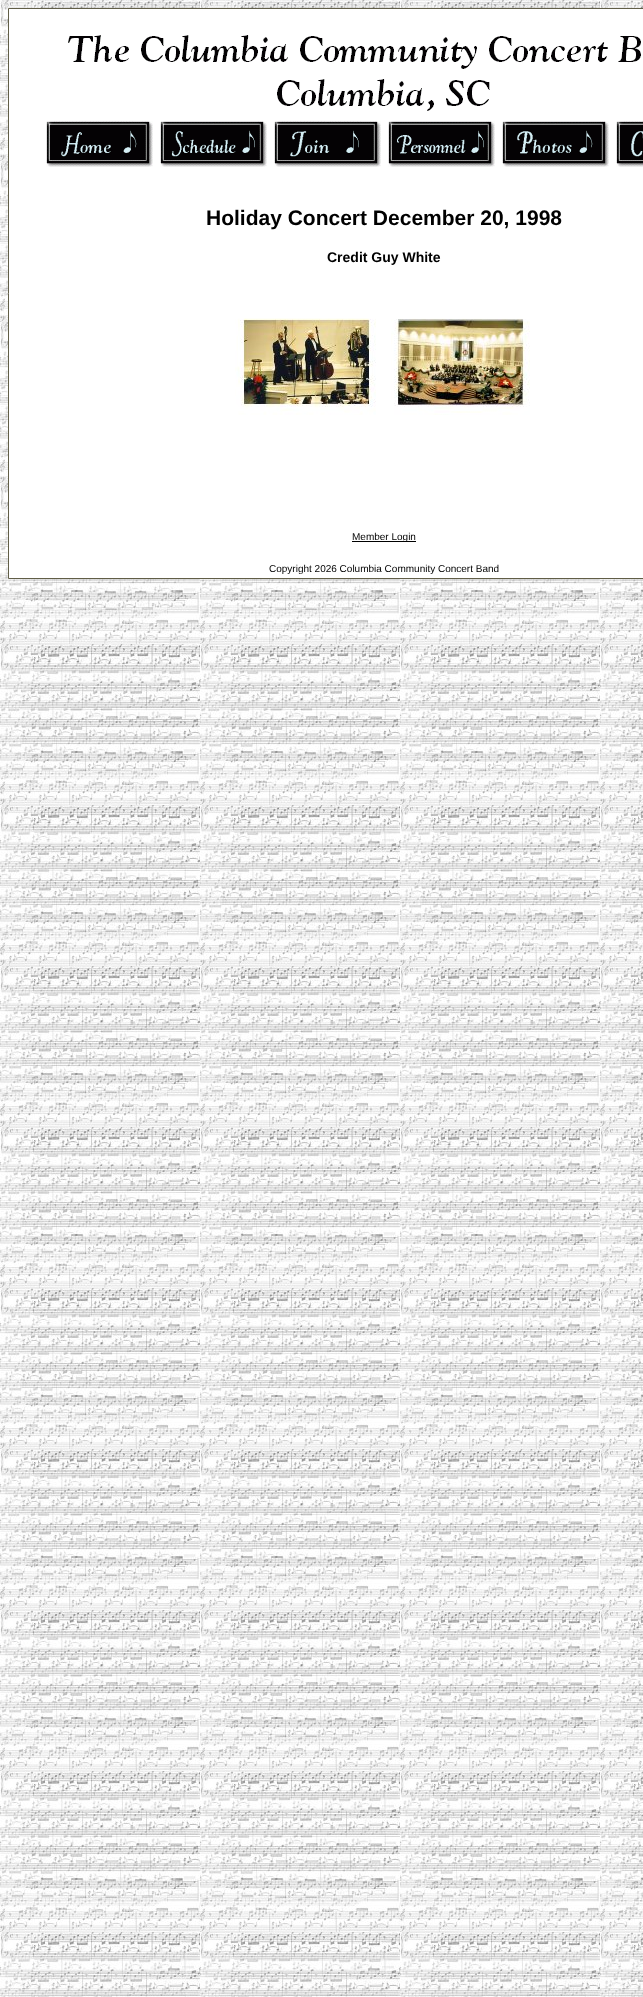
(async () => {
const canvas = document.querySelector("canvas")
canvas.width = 643
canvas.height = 1997
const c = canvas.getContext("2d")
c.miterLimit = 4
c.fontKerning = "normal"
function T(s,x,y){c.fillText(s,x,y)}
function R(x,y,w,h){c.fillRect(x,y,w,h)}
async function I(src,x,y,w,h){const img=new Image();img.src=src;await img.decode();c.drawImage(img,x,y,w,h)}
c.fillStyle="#fff"
R(0,0,643,1997)
await I("1.png",0,0,643,1997)
c.beginPath()
c.rect(8.5,8.5,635,570)
c.fill()
c.strokeStyle="#615e47"
c.stroke()
await I("2.png",68,35,573,76)
await I("3.png",46,121,107,46)
await I("4.png",160,121,107,46)
await I("5.png",274,121,107,46)
await I("6.png",388,121,107,46)
await I("7.png",502,121,107,46)
await I("8.png",616,121,27,46)
c.font="bold 21px Liberation Sans"
c.fillStyle="#000"
T("Holiday Concert December 20, 1998",206,225)
c.font="bold 14px Liberation Sans"
T("Credit Guy White",327,262)
await I("9.png",235,318,141,97)
await I("10.png",391,318,139,97)
R(352,541,64,1)
c.font="10px Liberation Sans"
T("Member Login",352,540)
T("Copyright 2026 Columbia Community Concert Band",269,572)
})()
